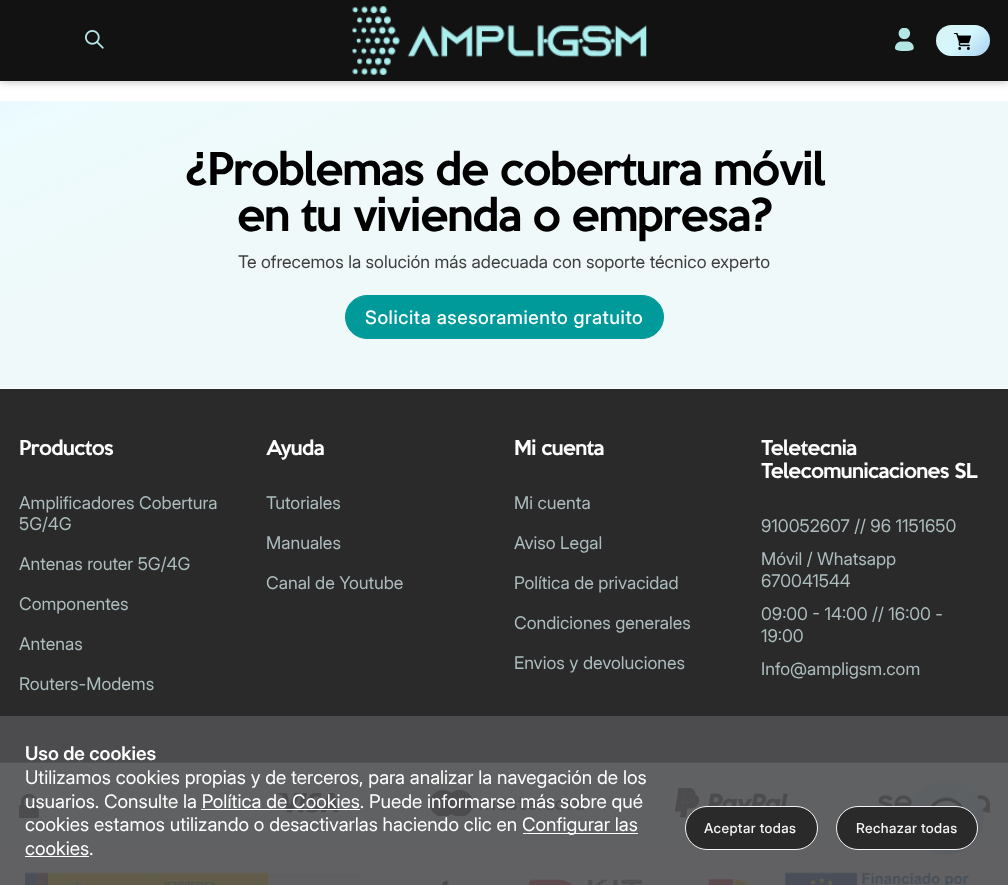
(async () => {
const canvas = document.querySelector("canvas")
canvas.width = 1008
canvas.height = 885
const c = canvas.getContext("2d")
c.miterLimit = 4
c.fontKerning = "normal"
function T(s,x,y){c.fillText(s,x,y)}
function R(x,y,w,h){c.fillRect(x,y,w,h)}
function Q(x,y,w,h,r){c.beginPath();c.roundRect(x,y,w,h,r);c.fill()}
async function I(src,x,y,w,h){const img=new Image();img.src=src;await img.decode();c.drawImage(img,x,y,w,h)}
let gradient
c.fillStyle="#fff"
R(0,0,1008,885)
c.fillStyle="#eff9f9"
R(0,763,1008,84)
c.fillStyle="#0000004d"
c.filter="blur(5px)"
c.beginPath()
c.rect(0,0,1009,81)
c.fill()
c.filter="none"
c.fillStyle="#121212"
R(0,0,1008,81)
await I("1.png",85,30,19,19)
await I("2.png",352,6,295,69)
await I("3.png",895,28,19,23)
gradient = c.createLinearGradient(984,62,942,19)
gradient.addColorStop(0,"#aacfef")
gradient.addColorStop(.5,"#d4f8fe")
gradient.addColorStop(1,"#d9f1f1")
c.fillStyle = gradient
Q(936,25,54,31,15.5)
await I("4.png",954,33,17,17)
await I("5.png",0,101,1008,288)
c.letterSpacing="-1.25px"
c.font="500 41.25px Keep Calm"
c.fillStyle="#000"
T("¿Problemas de cobertura móvil",185,185)
T("en tu vivienda o empresa?",237,231)
c.letterSpacing="0px"
c.font="17.5px Inter"
c.fillStyle="#3e3e3e"
T("Te ofrecemos la solución más adecuada con soporte técnico experto",238,268)
c.fillStyle="#009a9a"
c.beginPath()
c.roundRect(345.5,295.5,318,43,21.5)
c.fill()
c.strokeStyle="#009a9a"
c.stroke()
c.letterSpacing="0.55px"
c.font="500 18.75px Inter"
c.fillStyle="#fff"
T("Solicita asesoramiento gratuito",365,324)
c.fillStyle="#2a2a2a"
R(0,389,1008,373)
c.fillStyle="#747e7e"
R(0,762,1008,1)
c.letterSpacing="-0.6px"
c.font="500 18.75px Keep Calm"
c.fillStyle="#fff"
T("Productos",19,455)
c.letterSpacing="0px"
c.font="17.5px Inter"
c.fillStyle="#adbdbe"
T("Amplificadores Cobertura",19,509)
T("5G/4G",19,530)
T("Antenas router 5G/4G",19,570)
T("Componentes",19,610)
T("Antenas",19,650)
T("Routers-Modems",19,690)
c.letterSpacing="-0.6px"
c.font="500 18.75px Keep Calm"
c.fillStyle="#fff"
T("Ayuda",266,455)
c.letterSpacing="0px"
c.font="17.5px Inter"
c.fillStyle="#adbdbe"
T("Tutoriales",266,509)
T("Manuales",266,549)
T("Canal de Youtube",266,589)
c.letterSpacing="-0.6px"
c.font="500 18.75px Keep Calm"
c.fillStyle="#fff"
T("Mi cuenta",514,455)
c.letterSpacing="0px"
c.font="17.5px Inter"
c.fillStyle="#adbdbe"
T("Mi cuenta",514,509)
T("Aviso Legal",514,549)
T("Política de privacidad",514,589)
T("Condiciones generales",514,629)
T("Envios y devoluciones",514,669)
c.letterSpacing="-0.6px"
c.font="500 18.75px Keep Calm"
c.fillStyle="#fff"
T("Teletecnia",761,455)
T("Telecomunicaciones SL",761,478)
c.letterSpacing="0px"
c.font="17.5px Inter"
c.fillStyle="#adbdbe"
T("910052607 // 96 1151650",761,532)
T("Móvil / Whatsapp",761,565)
T("670041544",761,587)
T("09:00 - 14:00 // 16:00 -",761,620)
T("19:00",761,642)
T("Info@ampligsm.com",761,675)
await I("11.png",878,791,112,22)
await I("6.png",910,780,74,75)
await I("7.png",19,794,20,24)
await I("8.png",276,793,63,20)
await I("9.png",429,790,156,26)
await I("10.png",675,788,113,30)
await I("12.png",25,872,944,13)
c.fillStyle="#505052e6"
R(0,716,1008,169)
c.font="600 18.75px Inter"
c.fillStyle="#fff"
T("Uso de cookies",25,760)
c.font="18.75px Inter"
T("Utilizamos cookies propias y de terceros, para analizar la navegación de los",25,784)
T("usuarios. Consulte la Política de Cookies. Puede informarse más sobre qué",25,808)
R(201,809,159,1)
T("cookies estamos utilizando o desactivarlas haciendo clic en",25,831)
R(523,833,115,1)
T("Configurar las",522,831)
T("cookies.",25,855)
R(25,856,64,1)
c.fillStyle="#2a2a2a"
c.beginPath()
c.roundRect(685.5,806.5,132,43,21.5)
c.fill()
c.strokeStyle="#f5f5f7"
c.stroke()
c.letterSpacing="0.4px"
c.font="500 13.75px Inter"
c.fillStyle="#f5f5f7"
T("Aceptar todas",704,833)
c.fillStyle="#2a2a2a"
c.beginPath()
c.roundRect(836.5,806.5,141,43,21.5)
c.fill()
c.stroke()
c.fillStyle="#f5f5f7"
T("Rechazar todas",856,833)
})()
